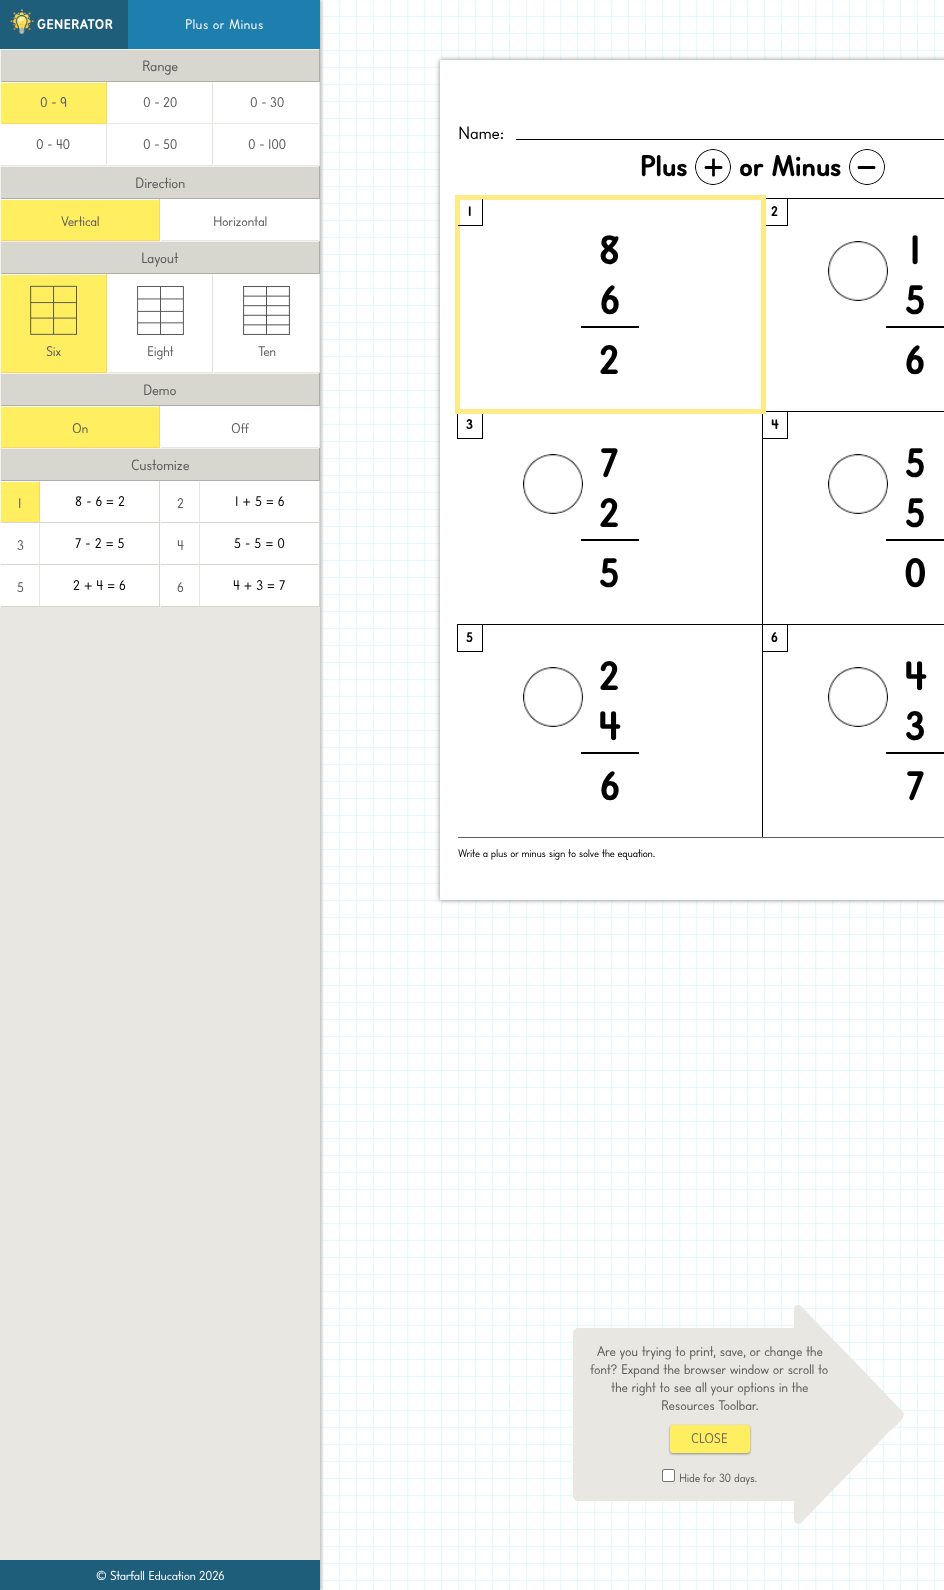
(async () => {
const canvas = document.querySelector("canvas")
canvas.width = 944
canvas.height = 1590
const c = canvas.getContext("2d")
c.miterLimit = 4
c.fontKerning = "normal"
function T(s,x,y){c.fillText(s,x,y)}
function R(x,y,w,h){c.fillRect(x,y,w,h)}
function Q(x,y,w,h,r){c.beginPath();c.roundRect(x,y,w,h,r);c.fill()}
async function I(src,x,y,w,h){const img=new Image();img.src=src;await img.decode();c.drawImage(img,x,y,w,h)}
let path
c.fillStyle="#fff"
R(0,0,944,1590)
await I("1.png",320,0,624,1590)
c.fillStyle="#c9c7c0"
c.filter="blur(1px)"
c.beginPath()
c.rect(2,0,320,1590)
c.fill()
c.filter="none"
c.fillStyle="#e8e7e2"
R(0,607,320,953)
c.fillStyle="#1e5e7b"
R(0,0,128,49)
await I("2.png",10,9,24,25)
c.letterSpacing="0.5px"
c.font="bold 14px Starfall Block"
c.fillStyle="#fff"
T("GENERATOR",37,29)
c.fillStyle="#1e7eae"
R(128,0,192,49)
c.letterSpacing="0.25px"
c.font="14px Starfall Block"
c.fillStyle="#fff"
T("Plus or Minus",185,29)
c.fillStyle="#d7d6cf"
R(0,50,320,557)
c.fillStyle="#f1f1f1"
R(0,49,320,1)
c.fillStyle="#afaea6"
R(319,49,1,33)
R(0,81,320,1)
c.fillStyle="#f1f1f1"
R(0,49,1,33)
c.letterSpacing="-0.25px"
c.font="15px Starfall Block"
c.fillStyle="#5c5c5c"
T("Range",142,71)
c.fillStyle="#ffee5f"
R(1,83,105,40)
c.fillStyle="#fff"
R(0,82,320,1)
c.fillStyle="#ffd75f"
R(106,82,1,42)
R(0,123,107,1)
c.fillStyle="#fff"
R(0,82,1,42)
c.font="14px Starfall Block"
c.fillStyle="#5c5c5c"
T("0 - 9",40,107)
c.fillStyle="#fff"
R(108,83,104,40)
c.fillStyle="#e8e7e2"
R(212,82,1,42)
R(107,123,106,1)
c.fillStyle="#fff"
R(107,82,1,42)
c.fillStyle="#5c5c5c"
T("0 - 20",143,107)
c.fillStyle="#fff"
R(214,83,105,40)
c.fillStyle="#e8e7e2"
R(319,82,1,42)
R(213,123,107,1)
c.fillStyle="#fff"
R(213,82,1,42)
c.fillStyle="#5c5c5c"
T("0 - 30",250,107)
c.fillStyle="#fff"
R(1,125,105,40)
R(0,124,320,1)
c.fillStyle="#e8e7e2"
R(106,124,1,42)
R(0,165,107,1)
c.fillStyle="#fff"
R(0,124,1,42)
c.fillStyle="#5c5c5c"
T("0 - 40",36,149)
c.fillStyle="#fff"
R(108,125,104,40)
c.fillStyle="#e8e7e2"
R(212,124,1,42)
R(107,165,106,1)
c.fillStyle="#fff"
R(107,124,1,42)
c.fillStyle="#5c5c5c"
T("0 - 50",143,149)
c.fillStyle="#fff"
R(214,125,105,40)
c.fillStyle="#e8e7e2"
R(319,124,1,42)
R(213,165,107,1)
c.fillStyle="#fff"
R(213,124,1,42)
c.fillStyle="#5c5c5c"
T("0 - 100",248,149)
c.fillStyle="#f1f1f1"
R(0,166,320,1)
c.fillStyle="#afaea6"
R(319,166,1,33)
R(0,198,320,1)
c.fillStyle="#f1f1f1"
R(0,166,1,33)
c.font="15px Starfall Block"
c.fillStyle="#5c5c5c"
T("Direction",135,188)
c.fillStyle="#ffee5f"
R(1,200,158,40)
c.fillStyle="#fff"
R(0,199,320,1)
c.fillStyle="#ffd75f"
R(159,199,1,42)
R(0,240,160,1)
c.fillStyle="#fff"
R(0,199,1,42)
c.font="14px Starfall Block"
c.fillStyle="#5c5c5c"
T("Vertical",61,226)
c.fillStyle="#fff"
R(161,200,158,40)
c.fillStyle="#e8e7e2"
R(319,199,1,42)
R(160,240,160,1)
c.fillStyle="#fff"
R(160,199,1,42)
c.fillStyle="#5c5c5c"
T("Horizontal",213,226)
c.fillStyle="#f1f1f1"
R(0,241,320,1)
c.fillStyle="#afaea6"
R(319,241,1,33)
R(0,273,320,1)
c.fillStyle="#f1f1f1"
R(0,241,1,33)
c.font="15px Starfall Block"
c.fillStyle="#5c5c5c"
T("Layout",141,263)
c.fillStyle="#ffee5f"
R(1,275,105,97)
c.fillStyle="#fff"
R(0,274,320,1)
c.fillStyle="#ffd75f"
R(106,274,1,99)
R(0,372,107,1)
c.fillStyle="#fff"
R(0,274,1,99)
await I("3.png",30,285,47,50)
c.font="14px Starfall Block"
c.fillStyle="#5c5c5c"
T("Six",46,356)
c.fillStyle="#fff"
R(108,275,104,97)
c.fillStyle="#e8e7e2"
R(212,274,1,99)
R(107,372,106,1)
c.fillStyle="#fff"
R(107,274,1,99)
await I("4.png",137,286,47,49)
c.fillStyle="#5c5c5c"
T("Eight",147,356)
c.fillStyle="#fff"
R(214,275,105,97)
c.fillStyle="#e8e7e2"
R(319,274,1,99)
R(213,372,107,1)
c.fillStyle="#fff"
R(213,274,1,99)
await I("5.png",243,286,47,49)
c.fillStyle="#5c5c5c"
T("Ten",258,356)
c.fillStyle="#f1f1f1"
R(0,373,320,1)
c.fillStyle="#afaea6"
R(319,373,1,33)
R(0,405,320,1)
c.fillStyle="#f1f1f1"
R(0,373,1,33)
c.font="15px Starfall Block"
c.fillStyle="#5c5c5c"
T("Demo",143,395)
c.fillStyle="#ffee5f"
R(1,407,158,40)
c.fillStyle="#fff"
R(0,406,320,1)
c.fillStyle="#ffd75f"
R(159,406,1,42)
R(0,447,160,1)
c.fillStyle="#fff"
R(0,406,1,42)
c.font="14px Starfall Block"
c.fillStyle="#5c5c5c"
T("On",72,433)
c.fillStyle="#fff"
R(161,407,158,40)
c.fillStyle="#e8e7e2"
R(319,406,1,42)
R(160,447,160,1)
c.fillStyle="#fff"
R(160,406,1,42)
c.fillStyle="#5c5c5c"
T("Off",231,433)
c.fillStyle="#f1f1f1"
R(0,448,320,1)
c.fillStyle="#afaea6"
R(319,448,1,33)
R(0,480,320,1)
c.fillStyle="#f1f1f1"
R(0,448,1,33)
c.font="15px Starfall Block"
c.fillStyle="#5c5c5c"
T("Customize",131,470)
c.fillStyle="#fff"
R(0,481,159,41)
c.fillStyle="#ffee5f"
R(1,482,38,40)
c.fillStyle="#fff"
R(1,523,158,41)
c.fillStyle="#ffd75f"
path = new Path2D("M40 481v43l-1-2v-40z")
c.fill(path)
c.fillStyle="#d7d6cf"
path = new Path2D("M40 524h-40l1-2h38z")
c.fill(path)
c.fillStyle="#fff"
path = new Path2D("M0 524v-43l1 1v40z")
c.fill(path)
c.font="14px Starfall Block"
c.fillStyle="#5c5c5c"
T("1",18,508)
c.letterSpacing="0px"
c.fillStyle="#000"
T("8 - 6 = 2",75,506)
c.fillStyle="#fff"
R(160,481,159,41)
R(161,523,158,41)
c.fillStyle="#e8e7e2"
path = new Path2D("M200 481v43l-1-2v-40z")
c.fill(path)
c.fillStyle="#d7d6cf"
path = new Path2D("M200 524h-40l1-2h38z")
c.fill(path)
c.fillStyle="#fff"
path = new Path2D("M160 524v-43l1 1v40z")
c.fill(path)
c.letterSpacing="-0.25px"
c.fillStyle="#5c5c5c"
T("2",177,508)
c.letterSpacing="0px"
c.fillStyle="#000"
T("1 + 5 = 6",235,506)
c.fillStyle="#fff"
R(0,523,40,1)
R(1,565,158,41)
c.fillStyle="#e8e7e2"
path = new Path2D("M40 523v43l-1-2v-40z")
c.fill(path)
c.fillStyle="#d7d6cf"
path = new Path2D("M40 566h-40l1-2h38z")
c.fill(path)
c.fillStyle="#fff"
path = new Path2D("M0 566v-43l1 1v40z")
c.fill(path)
c.letterSpacing="-0.25px"
c.fillStyle="#5c5c5c"
T("3",17,550)
c.letterSpacing="0px"
c.fillStyle="#000"
T("7 - 2 = 5",75,548)
c.fillStyle="#fff"
R(160,523,40,1)
R(161,565,158,41)
c.fillStyle="#e8e7e2"
path = new Path2D("M200 523v43l-1-2v-40z")
c.fill(path)
c.fillStyle="#d7d6cf"
path = new Path2D("M200 566h-40l1-2h38z")
c.fill(path)
c.fillStyle="#fff"
path = new Path2D("M160 566v-43l1 1v40z")
c.fill(path)
c.letterSpacing="-0.25px"
c.fillStyle="#5c5c5c"
T("4",177,550)
c.letterSpacing="0px"
c.fillStyle="#000"
T("5 - 5 = 0",234,548)
c.fillStyle="#fff"
R(0,565,40,1)
c.fillStyle="#e8e7e2"
R(39,565,1,42)
c.fillStyle="#d7d6cf"
R(39,606,1,1)
c.fillStyle="#fff"
R(0,565,1,42)
c.letterSpacing="-0.25px"
c.fillStyle="#5c5c5c"
T("5",17,592)
c.letterSpacing="0px"
c.fillStyle="#000"
T("2 + 4 = 6",73,590)
c.fillStyle="#fff"
R(160,565,40,1)
c.fillStyle="#e8e7e2"
R(199,565,1,42)
c.fillStyle="#d7d6cf"
R(199,606,1,1)
c.fillStyle="#fff"
R(160,565,1,42)
c.letterSpacing="-0.25px"
c.fillStyle="#5c5c5c"
T("6",177,592)
c.letterSpacing="0px"
c.fillStyle="#000"
T("4 + 3 = 7",233,590)
c.fillStyle="#1e5e7b"
R(0,1560,320,30)
c.letterSpacing="-0.25px"
c.font="13px Starfall Block"
c.fillStyle="#fff"
T("© Starfall Education 2026",96,1580)
c.fillStyle="#888"
c.filter="blur(2.5px)"
c.beginPath()
c.rect(440,60,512,840)
c.fill()
c.filter="none"
c.fillStyle="#fff"
R(440,60,504,840)
c.font="18px Starfall Block"
c.fillStyle="#000"
T("Name:",458,139)
R(516,139,428,1)
c.letterSpacing="-0.5px"
c.font="bold 30px Starfall Block"
T("Plus",640,176)
await I("6.png",695,149,36,36)
T("or Minus",739,176)
await I("7.png",849,149,36,36)
c.fillStyle="#5f5f5f"
R(458,837,486,1)
c.fillStyle="#000"
R(581,326,58,2)
c.strokeStyle="#000"
c.strokeRect(762.5,198.5,25,27)
c.strokeRect(457.5,411.5,25,27)
c.strokeRect(762.5,411.5,25,27)
c.strokeStyle="#feea87"
c.lineWidth=5
c.strokeRect(457.5,197.5,306,214)
c.save()
c.beginPath()
c.rect(458,199,304,212)
c.clip()
c.strokeStyle="#000"
c.lineWidth=1
c.strokeRect(457.5,198.5,25,27)
c.restore()
c.letterSpacing="-0.25px"
c.font="bold 14px Starfall Block"
T("1",468,216)
c.font="bold 41px Starfall Block"
T("8",599,264)
T("6",600,314)
T("2",599,374)
R(788,198,156,1)
c.font="bold 14px Starfall Block"
T("2",771,216)
await I("8.png",828,241,60,60)
c.font="bold 41px Starfall Block"
T("1",910,264)
T("5",905,314)
R(886,326,58,2)
T("6",905,374)
R(762,439,1,185)
c.font="bold 14px Starfall Block"
T("3",466,429)
await I("9.png",523,454,60,60)
c.font="bold 41px Starfall Block"
T("7",600,477)
T("2",599,527)
R(581,539,58,2)
T("5",599,587)
R(788,411,156,1)
c.font="bold 14px Starfall Block"
T("4",771,429)
await I("8.png",828,454,60,60)
c.font="bold 41px Starfall Block"
T("5",905,477)
T("5",905,527)
R(886,539,58,2)
T("0",904,587)
R(483,624,280,1)
R(762,652,1,185)
c.strokeStyle="#000"
c.lineWidth=1
c.strokeRect(457.5,624.5,25,27)
c.font="bold 14px Starfall Block"
T("5",466,642)
await I("9.png",523,667,60,60)
c.font="bold 41px Starfall Block"
T("2",599,690)
T("4",598,740)
R(581,752,58,2)
T("6",600,800)
R(788,624,156,1)
c.strokeRect(762.5,624.5,25,27)
c.font="bold 14px Starfall Block"
T("6",771,642)
await I("8.png",828,667,60,60)
c.font="bold 41px Starfall Block"
T("4",904,690)
T("3",905,740)
R(886,752,58,2)
T("7",906,800)
c.font="11px Starfall Block"
T("Write a plus or minus sign to solve the equation.",458,857)
c.fillStyle="#e8e7e2"
path = new Path2D("M903 1412l-102-106c-1-1-3-1-4-1c-2 1-3 2-3 4v19h-216c-2 0-5 2-5 5v163c0 3 3 5 5 5h216v19c1 3 3 4 5 4l2-1l85-88c4-5 22-17 17-23z")
c.fill(path)
c.font="14px Starfall Block"
c.fillStyle="#5c5c5c"
T("Are you trying to print, save, or change the",597,1356)
T("font? Expand the browser window or scroll to",590,1374)
T("the right to see all your options in the",611,1392)
T("Resources Toolbar.",661,1410)
c.fillStyle="#898989"
c.filter="blur(1px)"
c.beginPath()
c.roundRect(670,1426,80,28,3)
c.fill()
c.filter="none"
c.fillStyle="#ffee5f"
Q(670,1425,80,28,3)
c.fillStyle="#6a6666"
T("CLOSE",691,1443)
c.fillStyle="#fff"
c.beginPath()
c.roundRect(662.5,1469.5,12,12,1.5)
c.fill()
c.strokeStyle="#767676"
c.stroke()
c.font="12px Starfall Block"
c.fillStyle="#5c5c5c"
T("Hide for 30 days.",679,1482)
})()
